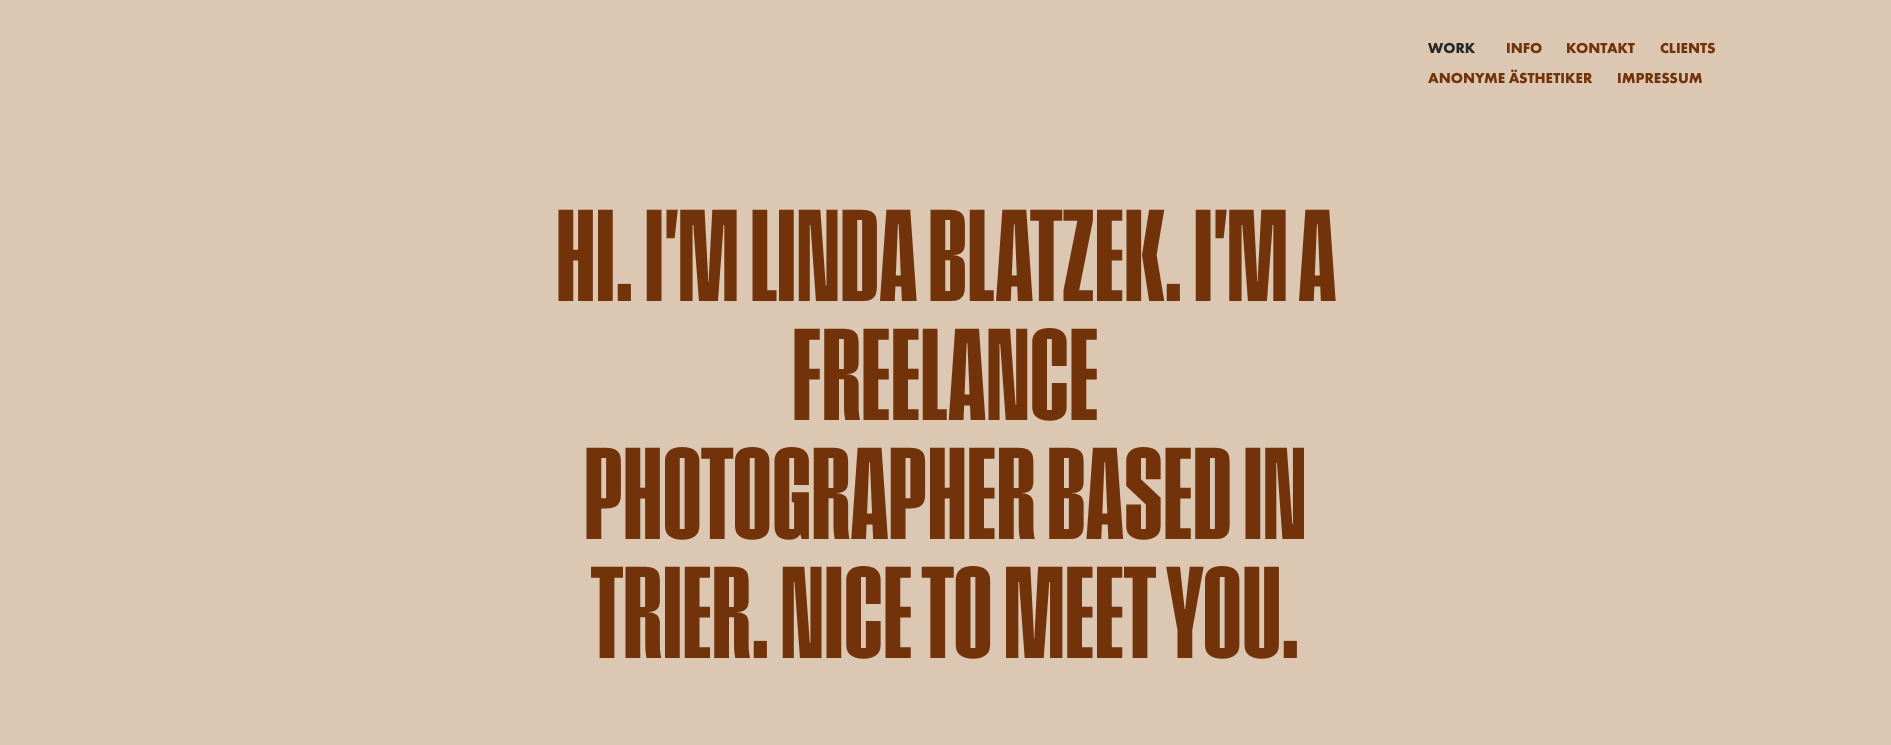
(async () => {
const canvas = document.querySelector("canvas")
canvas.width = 1891
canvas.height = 745
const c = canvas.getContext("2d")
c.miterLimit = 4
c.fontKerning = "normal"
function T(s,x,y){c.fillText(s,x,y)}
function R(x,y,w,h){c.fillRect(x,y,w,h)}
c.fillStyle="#dbc7b2"
R(0,0,1891,745)
c.font="bold 15px Futura PT"
c.fillStyle="#282828"
T("WORK",1428,53)
c.fillStyle="#72320a"
T("INFO",1506,53)
T("KONTAKT",1566,53)
T("CLIENTS",1660,53)
T("ANONYME ÄSTHETIKER",1428,83)
T("IMPRESSUM",1617,83)
c.font="800 125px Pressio"
T("HI. I'M LINDA BLATZEK. I'M A",556,301)
T("FREELANCE",792,420)
T("PHOTOGRAPHER BASED IN",584,539)
T("TRIER. NICE TO MEET YOU.",591,658)
})()
